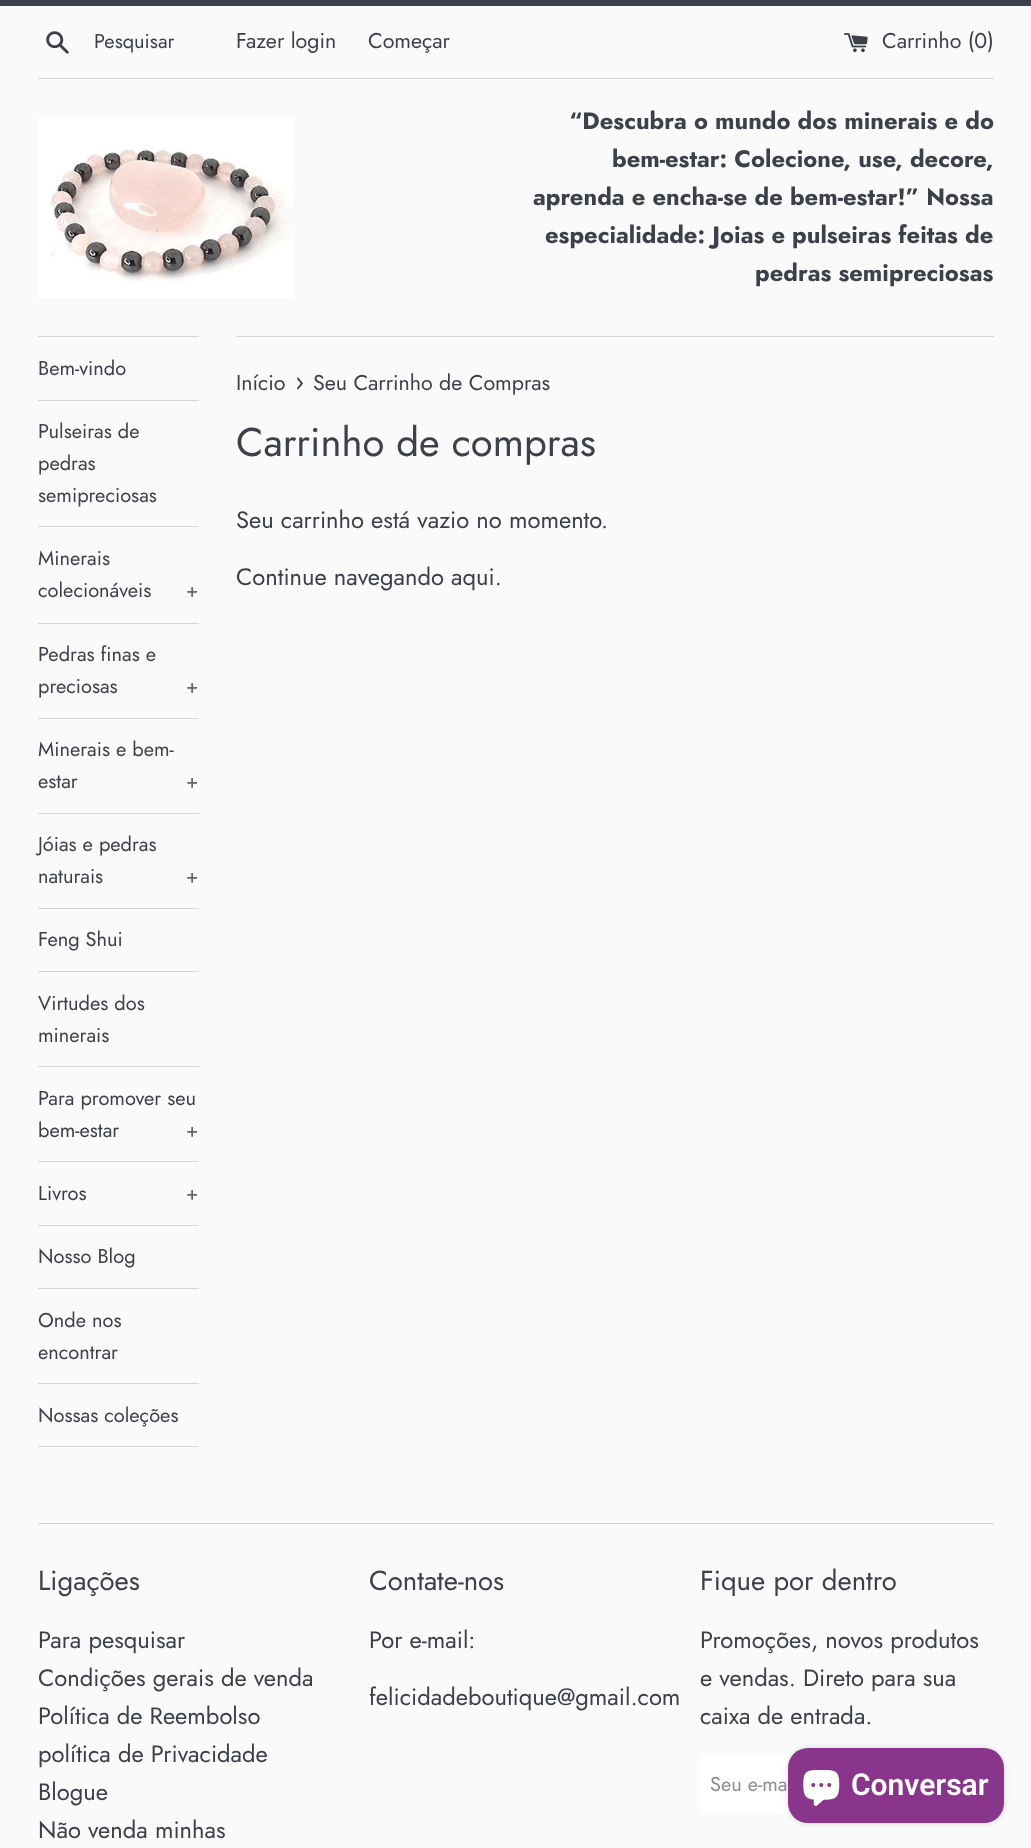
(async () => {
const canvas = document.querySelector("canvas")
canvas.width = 1031
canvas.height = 1848
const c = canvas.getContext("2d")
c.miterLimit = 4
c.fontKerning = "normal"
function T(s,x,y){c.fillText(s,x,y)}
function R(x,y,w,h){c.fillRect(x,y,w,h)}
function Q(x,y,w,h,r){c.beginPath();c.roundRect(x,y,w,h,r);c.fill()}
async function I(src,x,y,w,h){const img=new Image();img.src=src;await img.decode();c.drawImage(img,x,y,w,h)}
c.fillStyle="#fafafa"
R(0,0,1031,1848)
c.fillStyle="#3c4049"
R(0,0,1031,6)
await I("1.png",46,31,23,23)
c.font="20px Jost"
T("Pesquisar",94,48)
c.font="21.4px Jost"
T("Fazer login",236,48)
T("Começar",368,48)
await I("2.png",844,33,24,20)
T("Carrinho (0)",882,48)
c.fillStyle="#d7d8d2"
R(38,78,956,1)
await I("3.png",38,117,256,181)
c.font="bold 23.75px Jost"
c.fillStyle="#3c4049"
T("“Descubra o mundo dos minerais e do",569,129)
T("bem-estar: Colecione, use, decore,",612,167)
T("aprenda e encha-se de bem-estar!” Nossa",533,205)
T("especialidade: Joias e pulseiras feitas de",545,243)
T("pedras semipreciosas",755,281)
c.fillStyle="#d7d8d2"
R(38,336,161,1)
R(38,400,161,1)
c.font="20px Jost"
c.fillStyle="#3c4049"
T("Bem-vindo",38,375)
c.fillStyle="#d7d8d2"
R(38,526,161,1)
c.fillStyle="#3c4049"
T("Pulseiras de",38,438)
T("pedras",38,470)
T("semipreciosas",38,502)
c.fillStyle="#d7d8d2"
R(38,623,161,1)
c.fillStyle="#3c4049"
T("Minerais",38,565)
T("colecionáveis",38,597)
c.fillStyle="#62656c"
T("+",186,597)
c.fillStyle="#d7d8d2"
R(38,718,161,1)
c.fillStyle="#3c4049"
T("Pedras finas e",38,661)
T("preciosas",38,693)
c.fillStyle="#62656c"
T("+",186,693)
c.fillStyle="#d7d8d2"
R(38,813,161,1)
c.fillStyle="#3c4049"
T("Minerais e bem-",38,756)
T("estar",38,788)
c.fillStyle="#62656c"
T("+",186,788)
c.fillStyle="#d7d8d2"
R(38,908,161,1)
c.fillStyle="#3c4049"
T("Jóias e pedras",38,851)
T("naturais",38,883)
c.fillStyle="#62656c"
T("+",186,883)
c.fillStyle="#d7d8d2"
R(38,971,161,1)
c.fillStyle="#3c4049"
T("Feng Shui",38,946)
c.fillStyle="#d7d8d2"
R(38,1066,161,1)
c.fillStyle="#3c4049"
T("Virtudes dos",38,1010)
T("minerais",38,1042)
c.fillStyle="#d7d8d2"
R(38,1161,161,1)
c.fillStyle="#3c4049"
T("Para promover seu",38,1105)
T("bem-estar",38,1137)
c.fillStyle="#62656c"
T("+",186,1137)
c.fillStyle="#d7d8d2"
R(38,1225,161,1)
c.fillStyle="#3c4049"
T("Livros",38,1200)
c.fillStyle="#62656c"
T("+",186,1200)
c.fillStyle="#d7d8d2"
R(38,1288,161,1)
c.fillStyle="#3c4049"
T("Nosso Blog",38,1263)
c.fillStyle="#d7d8d2"
R(38,1383,161,1)
c.fillStyle="#3c4049"
T("Onde nos",38,1327)
T("encontrar",38,1359)
c.fillStyle="#d7d8d2"
R(38,1446,161,1)
c.fillStyle="#3c4049"
T("Nossas coleções",38,1422)
c.fillStyle="#d7d8d2"
R(236,336,758,1)
c.font="21.4px Jost"
c.fillStyle="#3c4049"
T("Início",236,390)
c.font="26px Jost"
T("›",295,390)
c.font="21.4px Jost"
T("Seu Carrinho de Compras",313,390)
c.font="40px Jost"
T("Carrinho de compras",236,456)
c.font="23.75px Jost"
T("Seu carrinho está vazio no momento.",236,528)
T("Continue navegando aqui.",236,585)
c.fillStyle="#d7d8d2"
R(38,1523,956,1)
c.font="27.5px Jost"
c.fillStyle="#3c4049"
T("Ligações",38,1590)
c.font="23.75px Jost"
T("Para pesquisar",38,1648)
T("Condições gerais de venda",38,1686)
T("Política de Reembolso",38,1724)
T("política de Privacidade",38,1762)
T("Blogue",38,1800)
T("Não venda minhas",38,1838)
c.font="27.5px Jost"
T("Contate-nos",369,1590)
c.font="23.75px Jost"
T("Por e-mail:",369,1648)
T("felicidadeboutique@gmail.com",369,1705)
c.font="27.5px Jost"
T("Fique por dentro",700,1590)
c.font="23.75px Jost"
T("Promoções, novos produtos",700,1648)
T("e vendas. Direto para sua",700,1686)
T("caixa de entrada.",700,1724)
c.fillStyle="#fff"
R(700,1754,94,60)
c.font="20px Jost"
c.fillStyle="#8a8c92"
T("Seu e-ma",710,1791)
c.fillStyle="#00000026"
c.filter="blur(3px)"
c.beginPath()
c.roundRect(788,1748,216,75,20)
c.fill()
c.filter="none"
c.fillStyle="#88358b"
Q(788,1748,216,75,20)
await I("4.png",803,1770,37,36)
c.font="600 30px Roboto"
c.fillStyle="#fff"
T("Conversar",851,1795)
})()
